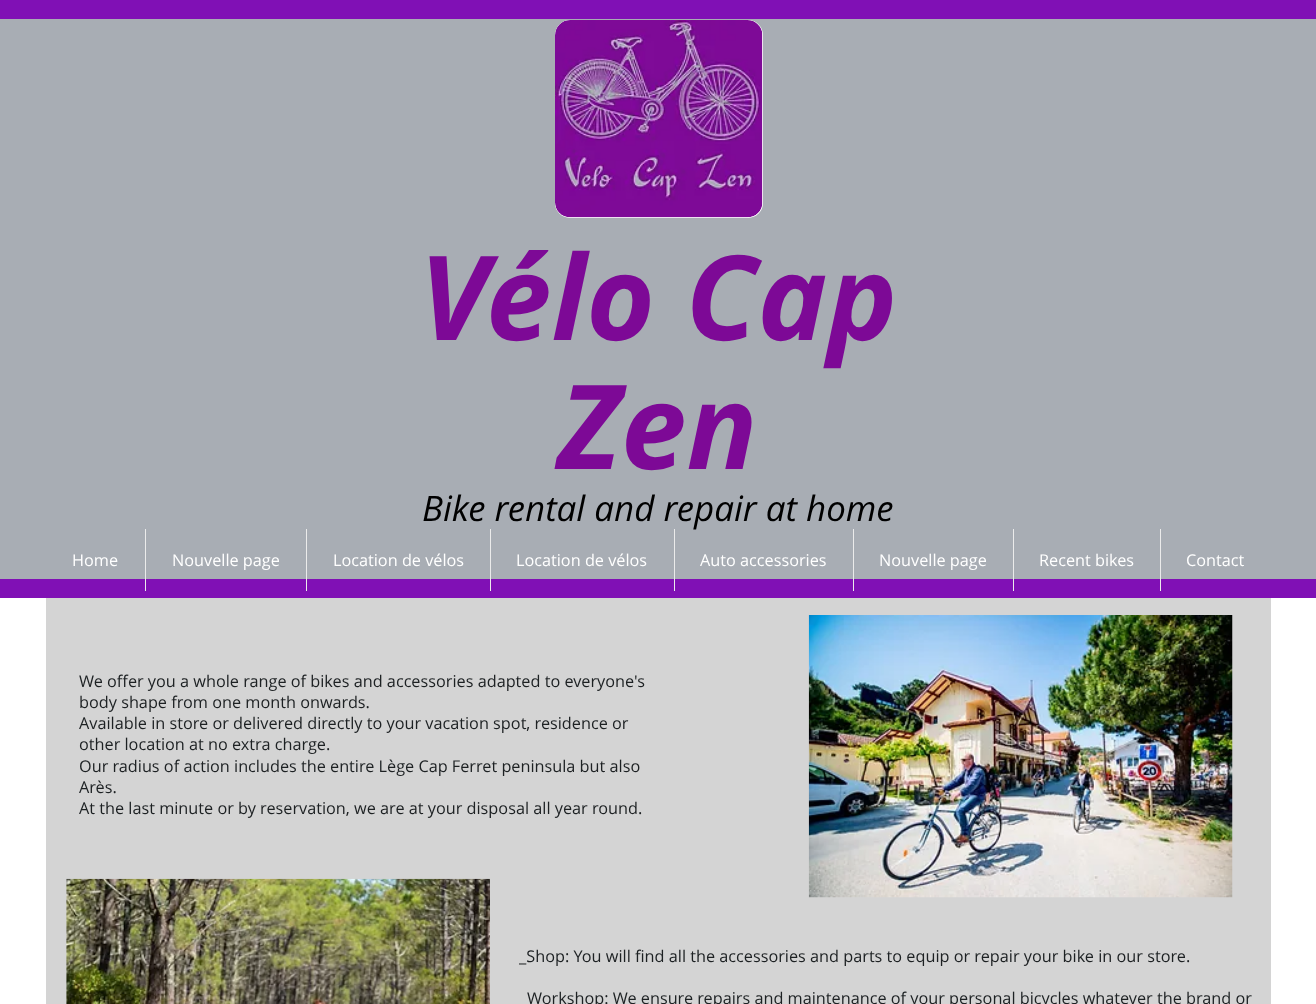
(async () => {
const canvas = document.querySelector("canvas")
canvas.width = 1316
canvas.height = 1004
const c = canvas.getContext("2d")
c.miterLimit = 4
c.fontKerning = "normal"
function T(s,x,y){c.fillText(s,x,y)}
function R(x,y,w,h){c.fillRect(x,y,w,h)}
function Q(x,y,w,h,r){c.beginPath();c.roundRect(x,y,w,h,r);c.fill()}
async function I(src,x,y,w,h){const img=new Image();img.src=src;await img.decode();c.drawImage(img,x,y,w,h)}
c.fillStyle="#fff"
R(0,0,1316,1004)
c.fillStyle="#a8adb4"
R(0,19,1316,560)
c.fillStyle="#8010b5"
R(0,0,1316,19)
R(0,579,1316,19)
c.fillStyle="#fff"
Q(555,20,208,198,15)
await I("1.png",555,20,208,198)
c.font="italic bold 117.5px Open Sans"
c.fillStyle="#7d0996"
T("Vélo Cap",419,340)
T("Zen",558,469)
c.font="italic 35px Open Sans"
c.fillStyle="#000"
T("Bike rental and repair at home",422,521)
c.font="16.25px Open Sans"
c.fillStyle="#fff"
T("Home",72,566)
c.fillStyle="#ebebeb"
R(145,529,1,62)
c.fillStyle="#fff"
T("Nouvelle page",172,566)
c.fillStyle="#ebebeb"
R(306,529,1,62)
c.fillStyle="#fff"
T("Location de vélos",333,566)
c.fillStyle="#ebebeb"
R(490,529,1,62)
c.fillStyle="#fff"
T("Location de vélos",516,566)
c.fillStyle="#ebebeb"
R(674,529,1,62)
c.fillStyle="#fff"
T("Auto accessories",700,566)
c.fillStyle="#ebebeb"
R(853,529,1,62)
c.fillStyle="#fff"
T("Nouvelle page",879,566)
c.fillStyle="#ebebeb"
R(1013,529,1,62)
c.fillStyle="#fff"
T("Recent bikes",1039,566)
c.fillStyle="#ebebeb"
R(1160,529,1,62)
c.fillStyle="#fff"
T("Contact",1186,566)
c.fillStyle="#d4d4d4"
R(46,598,1225,406)
c.fillStyle="#1d2123"
T("We offer you a whole range of bikes and accessories adapted to everyone's",79,687)
T("body shape from one month onwards.",79,708)
T("Available in store or delivered directly to your vacation spot, residence or",79,729)
T("other location at no extra charge.",79,750)
T("Our radius of action includes the entire Lège Cap Ferret peninsula but also",79,772)
T("Arès.",79,793)
T("At the last minute or by reservation, we are at your disposal all year round.",79,814)
await I("2.png",808,615,425,283)
await I("3.png",66,878,424,126)
T("_Shop: You will find all the accessories and parts to equip or repair your bike in our store.",519,962)
T("Workshop: We ensure repairs and maintenance of your personal bicycles whatever the brand or",527,1004)
})()
